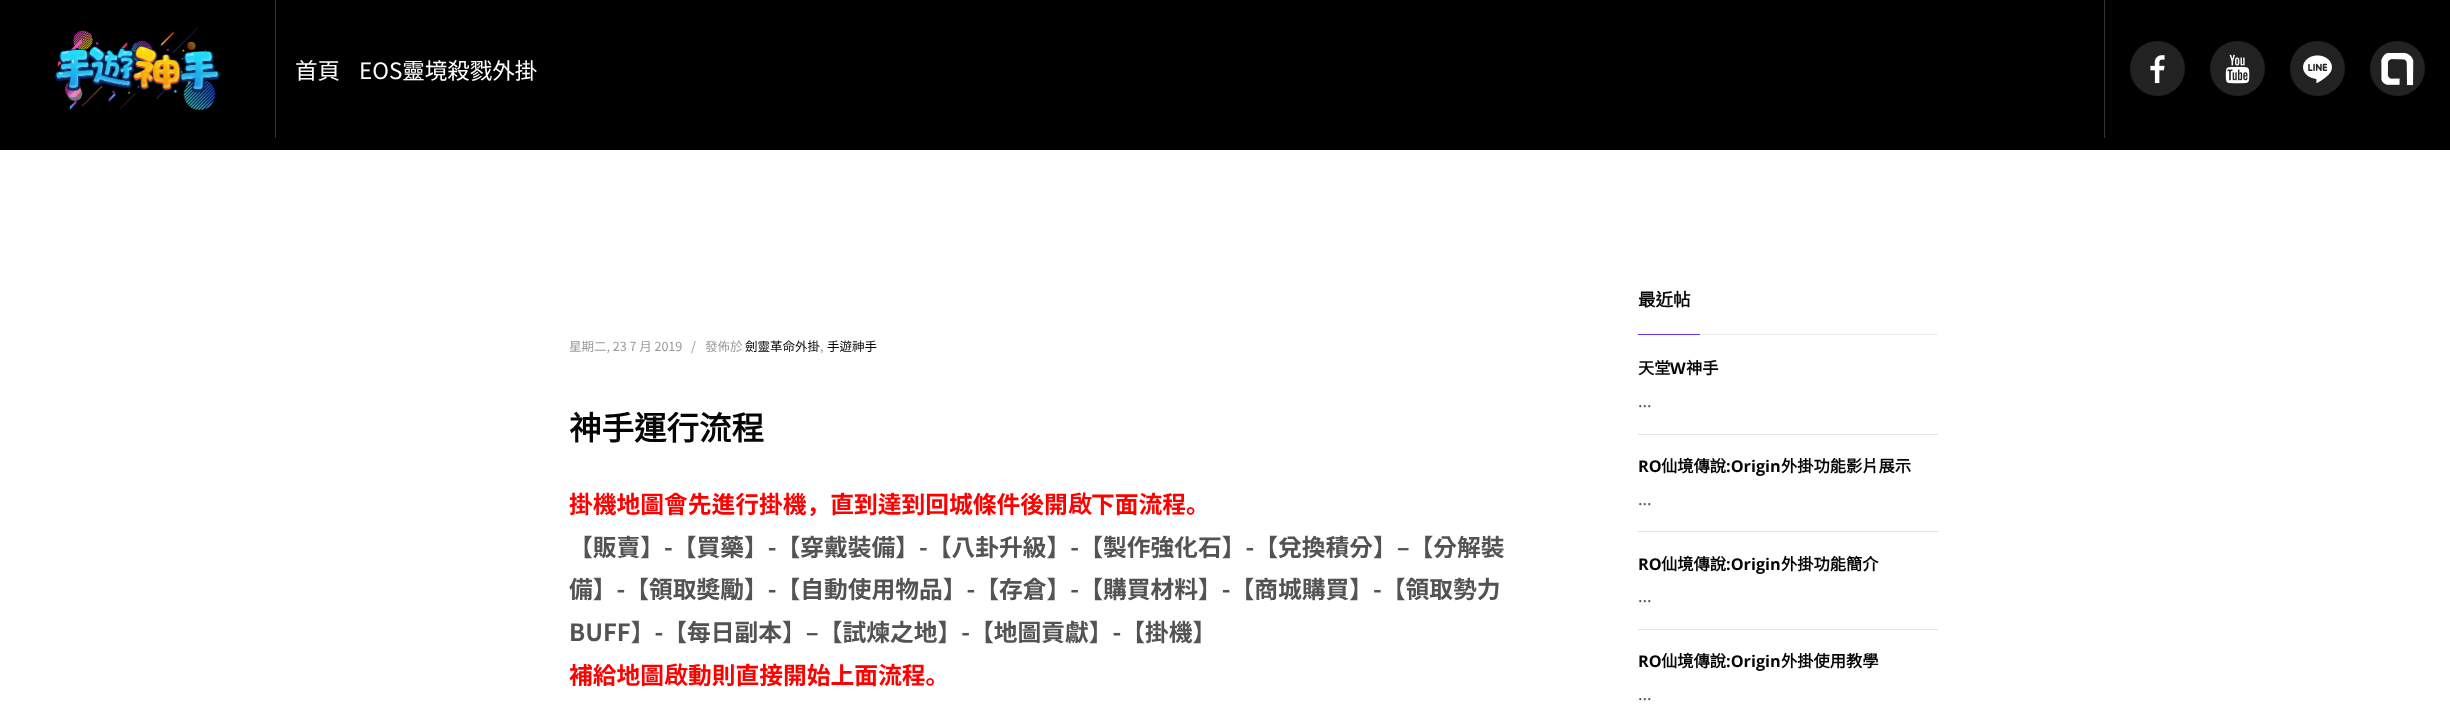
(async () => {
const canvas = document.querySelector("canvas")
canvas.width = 2450
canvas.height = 705
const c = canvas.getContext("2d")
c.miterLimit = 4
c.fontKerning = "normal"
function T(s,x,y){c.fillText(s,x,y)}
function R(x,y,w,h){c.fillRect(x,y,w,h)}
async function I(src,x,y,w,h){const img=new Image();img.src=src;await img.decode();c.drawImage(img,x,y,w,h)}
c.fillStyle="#fff"
R(0,0,2450,705)
c.fillStyle="#000"
R(0,0,2450,150)
await I("1.png",55,27,165,83)
c.fillStyle="#333"
R(2104,0,1,138)
R(275,0,1,138)
c.font="22.5px Noto Sans KR"
c.fillStyle="#fff"
T("首頁",295,79)
T("EOS靈境殺戮外掛",359,79)
c.fillStyle="#222"
c.beginPath()
c.arc(2157.5,68.5,27.5,0,7)
c.fill()
await I("2.png",2150,55,15,29)
c.beginPath()
c.arc(2237.5,68.5,27.5,0,7)
c.fill()
await I("3.png",2225,54,25,30)
c.beginPath()
c.arc(2317.5,68.5,27.5,0,7)
c.fill()
await I("4.png",2303,55,29,28)
c.beginPath()
c.arc(2397.5,68.5,27.5,0,7)
c.fill()
await I("5.png",2381,52,33,34)
c.font="12.5px Noto Sans KR"
c.fillStyle="#9a9a9a"
T("星期二, 23 7 月 2019",569,351)
T("/",691,351)
T("發佈於",705,351)
c.fillStyle="#050505"
T("劍靈革命外掛",745,351)
c.fillStyle="#9a9a9a"
T(",",820,351)
c.fillStyle="#050505"
T("手遊神手",827,351)
c.font="bold 32.5px Noto Sans CJK TC"
T("神手運行流程",569,440)
c.font="bold 23.75px Noto Sans KR"
c.fillStyle="#f00"
T("掛機地圖會先進行掛機，直到達到回城條件後開",569,513)
c.font="bold 23.75px Noto Sans CJK TC"
T("啟",1068,513)
c.font="bold 23.75px Noto Sans KR"
T("下面流程。",1091,513)
c.fillStyle="#535353"
T("【販賣】-【買藥】-【穿戴裝備】-【八卦升級】-【製作強化石】-【兌換積分】–【分解裝",569,556)
T("備】-【領取奬勵】-【自動使用物品】-【存倉】-【購買材料】-【商城購買】-【領取勢力",569,598)
T("BUFF】-【每日副本】–【試煉之地】-【地圖貢獻】-【掛機】",569,641)
c.fillStyle="#f00"
T("補給地圖",569,684)
c.font="bold 23.75px Noto Sans CJK TC"
T("啟",664,684)
c.font="bold 23.75px Noto Sans KR"
T("動則直接開始上面流程。",688,684)
c.font="bold 17.5px Noto Sans CJK TC"
c.fillStyle="#050505"
T("最近帖",1638,306)
c.fillStyle="#63f"
R(1638,334,62,1)
c.fillStyle="#ececec"
R(1700,334,238,1)
c.fillStyle="#e3e3e3"
R(1638,434,300,1)
c.font="bold 16.25px Noto Sans CJK TC"
c.fillStyle="#050505"
T("天堂",1638,374)
c.font="bold 16.25px Open Sans"
T("W",1670,374)
c.font="bold 16.25px Noto Sans CJK TC"
T("神手",1686,374)
c.font="16.25px Noto Sans KR"
c.fillStyle="#535353"
T("...",1638,407)
c.fillStyle="#e3e3e3"
R(1638,531,300,1)
c.font="bold 16.25px Open Sans"
c.fillStyle="#050505"
T("RO",1638,472)
c.font="bold 16.25px Noto Sans CJK TC"
T("仙境傳說",1661,472)
c.font="bold 16.25px Open Sans"
T(":Origin",1726,472)
c.font="bold 16.25px Noto Sans CJK TC"
T("外掛功能影片展示",1781,472)
c.font="16.25px Noto Sans KR"
c.fillStyle="#535353"
T("...",1638,505)
c.fillStyle="#e3e3e3"
R(1638,629,300,1)
c.font="bold 16.25px Open Sans"
c.fillStyle="#050505"
T("RO",1638,570)
c.font="bold 16.25px Noto Sans CJK TC"
T("仙境傳說",1661,570)
c.font="bold 16.25px Open Sans"
T(":Origin",1726,570)
c.font="bold 16.25px Noto Sans CJK TC"
T("外掛功能簡介",1781,570)
c.font="16.25px Noto Sans KR"
c.fillStyle="#535353"
T("...",1638,602)
c.font="bold 16.25px Open Sans"
c.fillStyle="#050505"
T("RO",1638,667)
c.font="bold 16.25px Noto Sans CJK TC"
T("仙境傳說",1661,667)
c.font="bold 16.25px Open Sans"
T(":Origin",1726,667)
c.font="bold 16.25px Noto Sans CJK TC"
T("外掛使用教學",1781,667)
c.font="16.25px Noto Sans KR"
c.fillStyle="#535353"
T("...",1638,700)
})()
